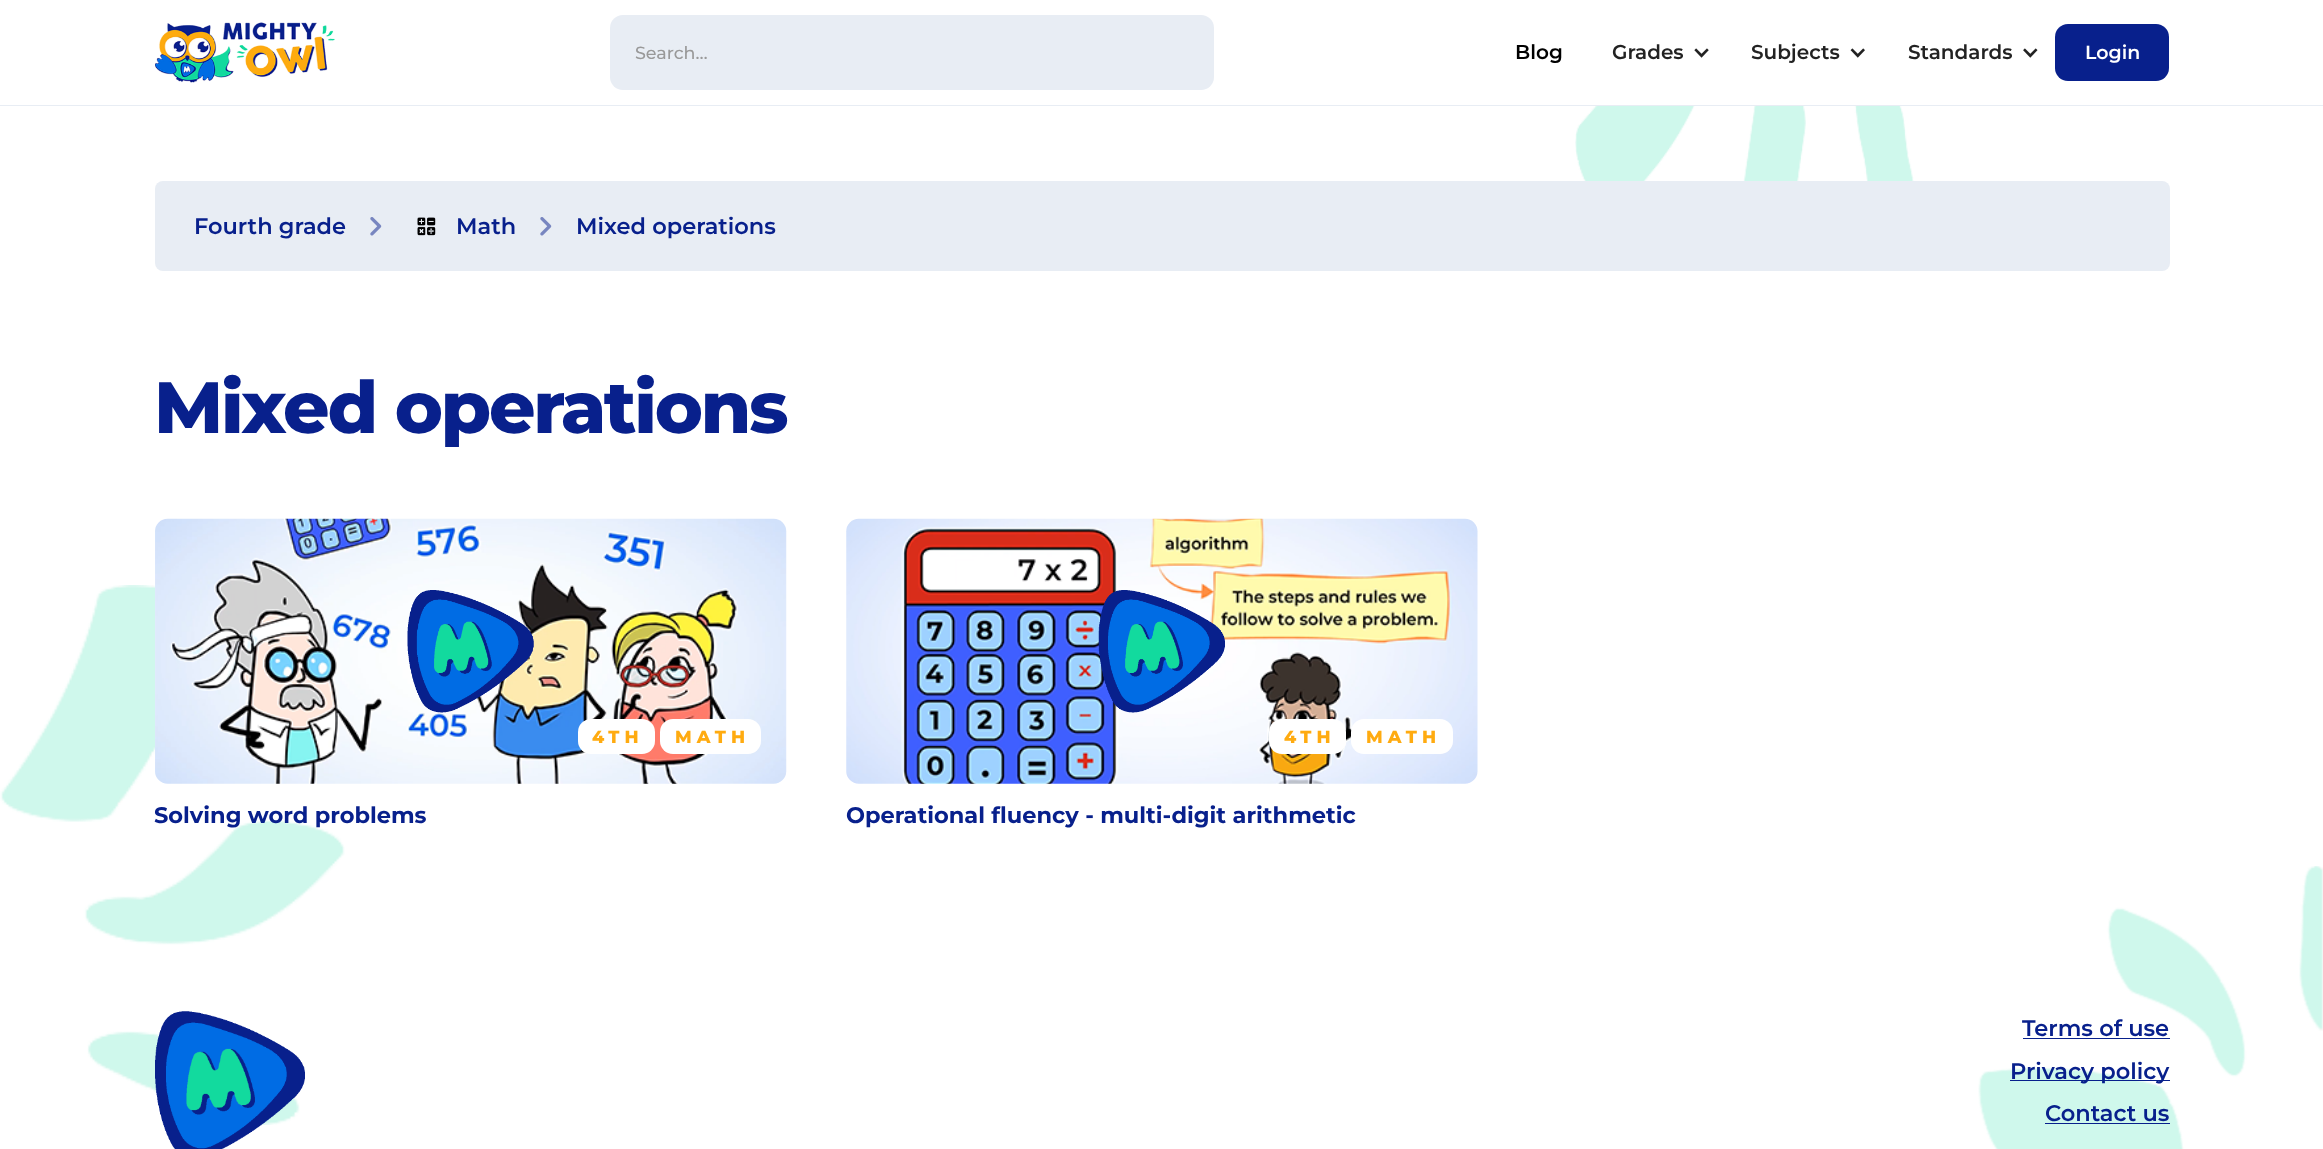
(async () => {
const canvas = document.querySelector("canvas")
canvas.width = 2323
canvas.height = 1149
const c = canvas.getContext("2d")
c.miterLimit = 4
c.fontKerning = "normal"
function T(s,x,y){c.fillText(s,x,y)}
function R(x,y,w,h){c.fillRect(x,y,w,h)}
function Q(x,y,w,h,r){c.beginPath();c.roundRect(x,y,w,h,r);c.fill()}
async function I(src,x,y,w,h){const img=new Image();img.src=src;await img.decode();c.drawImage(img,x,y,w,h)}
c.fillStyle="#fff"
R(0,0,2323,1149)
await I("1.png",155,22,180,61)
c.fillStyle="#e8edf4"
Q(610,15,604,75,13)
c.font="500 17.5px Montserrat"
c.fillStyle="#999"
T("Search…",635,59)
c.font="600 20px Montserrat"
c.fillStyle="#000"
T("Blog",1515,59)
c.fillStyle="#222"
T("Grades",1612,59)
await I("2.png",1694,48,15,10)
T("Subjects",1751,59)
await I("3.png",1850,48,15,10)
T("Standards",1908,59)
await I("4.png",2023,48,15,10)
c.fillStyle="#08208c"
Q(2055,24,114,57,13)
c.font="600 19px Montserrat"
c.fillStyle="#fff"
T("Login",2085,59)
c.fillStyle="#e8edf4"
R(0,105,2323,1)
await I("5.png",1575,106,339,75)
await I("6.png",0,585,345,540)
await I("7.png",1978,866,345,283)
Q(155,181,2015,90,8)
c.font="600 22.5px Montserrat"
c.fillStyle="#08208c"
T("Fourth grade",194,234)
await I("8.png",370,217,12,19)
await I("9.png",417,217,19,19)
T("Math",456,234)
await I("8.png",540,217,12,19)
T("Mixed operations",576,234)
c.letterSpacing="-2.2px"
c.font="800 72.5px Montserrat"
T("Mixed operations",154,433)
await I("10.png",155,518,632,266)
await I("11.png",407,590,127,123)
c.fillStyle="#fff"
Q(578,719,77,35,13)
c.letterSpacing="5px"
c.font="800 17.5px Montserrat"
c.fillStyle="#ffab10"
T("4TH",592,743)
c.fillStyle="#fff"
Q(660,719,101,35,13)
c.fillStyle="#ffab10"
T("MATH",675,743)
c.letterSpacing="0px"
c.font="bold 22.5px Montserrat"
c.fillStyle="#08208c"
T("Solving word problems",154,823)
await I("12.png",846,518,632,266)
await I("13.png",1098,590,127,123)
c.fillStyle="#fff"
Q(1269,719,77,35,13)
c.letterSpacing="5px"
c.font="800 17.5px Montserrat"
c.fillStyle="#ffab10"
T("4TH",1284,743)
c.fillStyle="#fff"
Q(1351,719,102,35,13)
c.fillStyle="#ffab10"
T("MATH",1366,743)
c.letterSpacing="0px"
c.font="bold 22.5px Montserrat"
c.fillStyle="#08208c"
T("Operational fluency - multi-digit arithmetic",846,823)
await I("14.png",155,1011,150,138)
c.font="600 22.5px Montserrat"
T("Terms of use",2022,1036)
R(2023,1038,147,1)
R(2010,1080,160,1)
T("Privacy policy",2010,1079)
T("Contact us",2045,1121)
R(2045,1123,125,1)
})()
